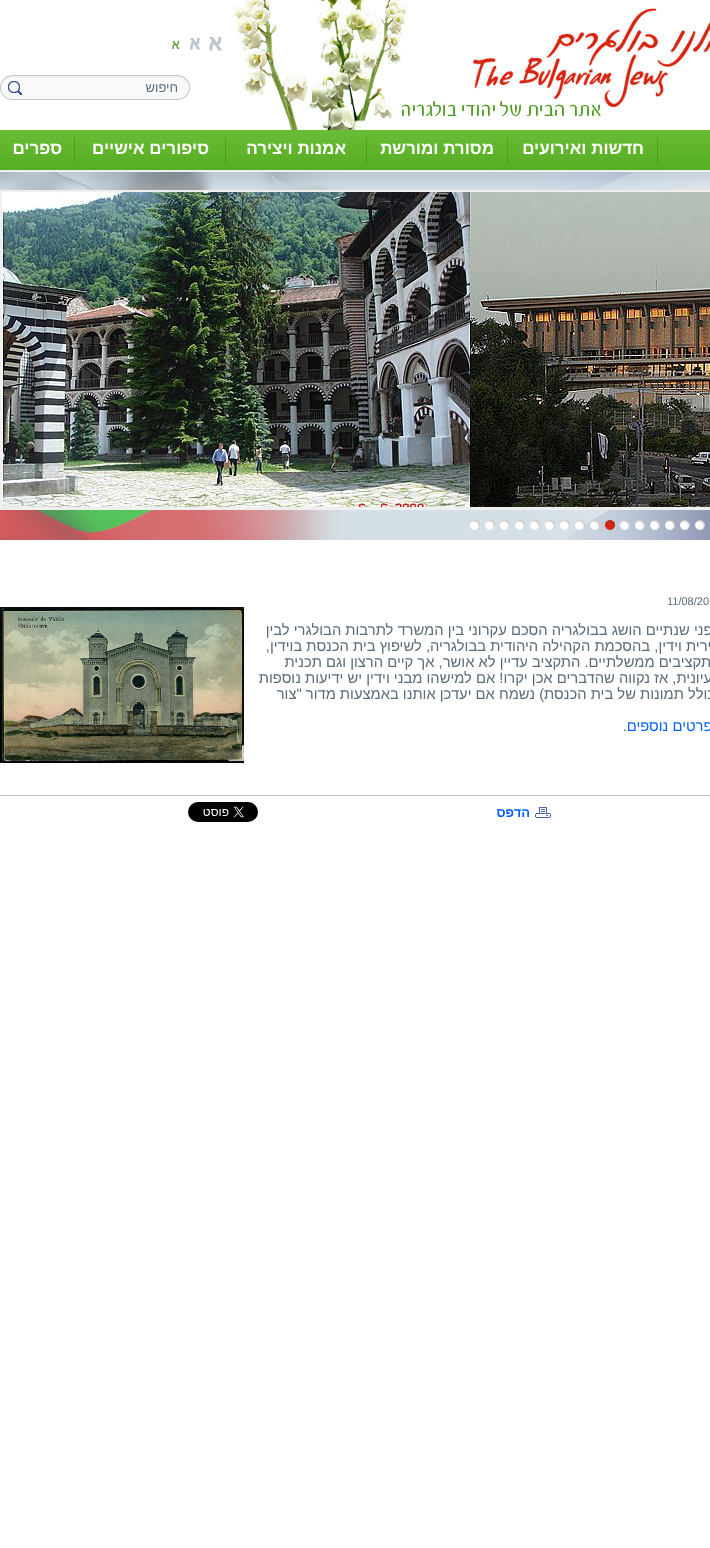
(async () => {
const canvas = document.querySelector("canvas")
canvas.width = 710
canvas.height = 1548
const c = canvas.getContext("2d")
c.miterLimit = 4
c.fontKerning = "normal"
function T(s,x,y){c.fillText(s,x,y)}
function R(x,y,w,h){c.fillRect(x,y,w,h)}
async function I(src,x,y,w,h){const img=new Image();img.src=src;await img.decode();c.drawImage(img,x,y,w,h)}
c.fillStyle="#fff"
R(0,0,710,1548)
await I("1.png",0,130,710,56)
await I("2.png",0,172,710,368)
await I("3.png",0,0,710,130)
await I("4.png",209,37,13,14)
await I("5.png",190,38,11,12)
await I("6.png",172,41,8,8)
await I("7.png",30,75,160,25)
c.direction="rtl"
c.font="13px Liberation Sans"
c.fillStyle="#5a6c79"
T("חיפוש",178,92)
await I("8.png",0,75,30,25)
await I("9.png",657,137,1,26)
c.font="bold 17px Liberation Sans"
c.fillStyle="#fff"
T("חדשות ואירועים",644,154)
await I("9.png",507,137,1,26)
T("מסורת ומורשת",494,154)
await I("9.png",366,137,1,26)
T("אמנות ויצירה",346,154)
await I("9.png",225,137,1,26)
T("סיפורים אישיים",209,154)
await I("9.png",74,137,1,26)
T("ספרים",62,154)
c.strokeStyle="#efefef"
c.lineWidth=2
c.strokeRect(1,191,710,318)
c.strokeRect(1,191,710,317)
c.strokeRect(1,191,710,316)
await I("10.png",2,192,708,315)
await I("11.png",695,520,10,10)
await I("12.png",680,520,10,10)
await I("13.png",665,520,10,10)
await I("14.png",650,520,10,10)
await I("15.png",635,520,10,10)
await I("16.png",620,520,10,10)
await I("17.png",605,520,10,10)
await I("18.png",590,520,10,10)
await I("19.png",575,520,10,10)
await I("20.png",560,520,10,10)
await I("21.png",545,520,10,10)
await I("22.png",530,520,10,10)
await I("23.png",515,520,10,10)
await I("23.png",500,520,10,10)
await I("23.png",485,520,10,10)
await I("23.png",470,520,10,10)
c.direction="ltr"
c.font="11px Liberation Sans"
c.fillStyle="#5a6c79"
T("11/08/20",667,605)
c.direction="rtl"
c.font="14.75px Liberation Sans"
T("לפני שנתיים הושג בבולגריה הסכם עקרוני בין המשרד לתרבות הבולגרי לבין",720,635)
T("עירית וידין, בהסכמת הקהילה היהודית בבולגריה, לשיפוץ בית הכנסת בוידין,",720,651)
T("בתקציבים ממשלתיים. התקציב עדיין לא אושר, אך קיים הרצון וגם תכנית",720,667)
T("רעיונית, אז נקווה שהדברים אכן יקרו! אם למישהו מבני וידין יש ידיעות נוספות",720,683)
T("(כולל תמונות של בית הכנסת) נשמח אם יעדכן אותנו באמצעות מדור \"צור",720,699)
c.fillStyle="#0662fa"
T("לפרטים נוספים",720,731)
c.direction="ltr"
c.fillStyle="#5a6c79"
T(".",623,731)
await I("24.png",0,607,244,156)
c.fillStyle="#bcbcbc"
R(0,795,710,1)
await I("25.png",535,807,16,11)
c.direction="rtl"
c.font="bold 13px Liberation Sans"
c.fillStyle="#0662fa"
T("הדפס",530,817)
await I("26.png",188,802,70,20)
})()
